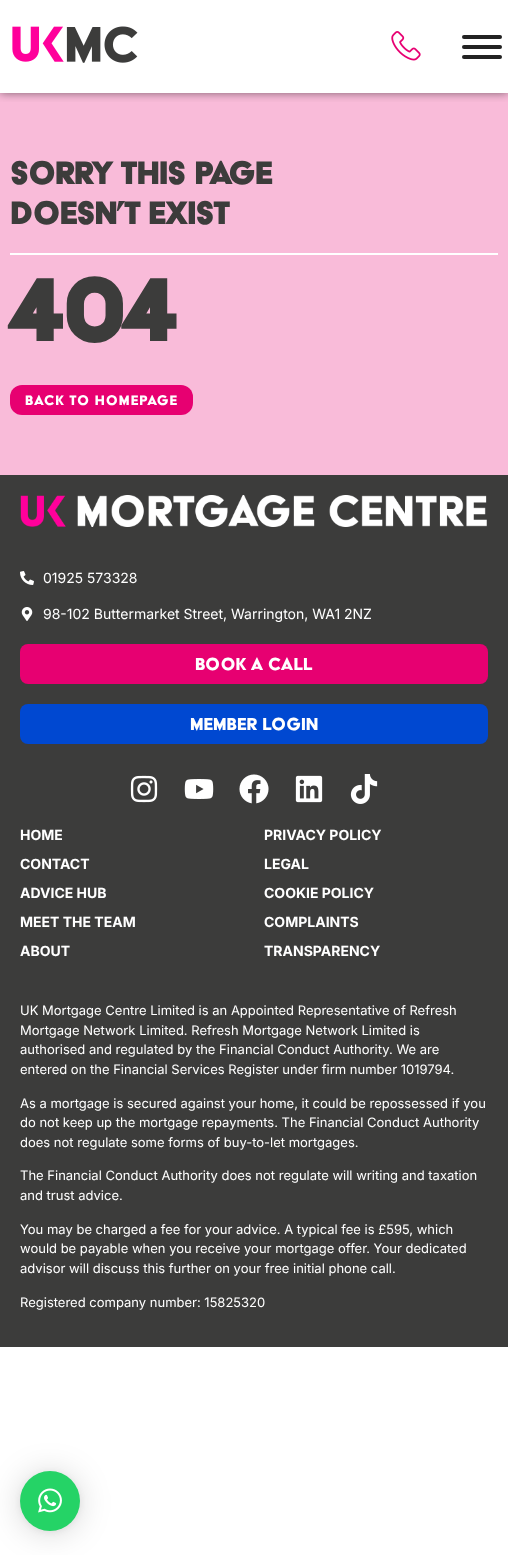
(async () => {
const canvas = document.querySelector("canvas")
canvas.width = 508
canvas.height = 1555
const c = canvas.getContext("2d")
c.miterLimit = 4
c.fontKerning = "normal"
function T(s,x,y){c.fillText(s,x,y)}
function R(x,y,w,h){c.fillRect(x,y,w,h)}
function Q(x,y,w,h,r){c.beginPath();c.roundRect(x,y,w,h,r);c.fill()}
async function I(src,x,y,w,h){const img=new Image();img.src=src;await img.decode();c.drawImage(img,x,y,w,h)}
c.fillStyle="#fff"
R(0,0,508,1555)
c.fillStyle="#f9bbd9"
R(0,93,508,382)
c.save()
c.beginPath()
c.rect(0,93,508,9)
c.clip()
c.fillStyle="#00000080"
c.filter="blur(5px)"
c.beginPath()
c.rect(0,0,508,93)
c.fill()
c.filter="none"
c.restore()
await I("1.png",12,26,126,37)
await I("2.png",391,31,30,30)
c.fillStyle="#222"
Q(462,35,40,4,2)
Q(462,45,40,4,2)
Q(462,55,40,4,2)
c.letterSpacing="-0.25px"
c.font="bold 36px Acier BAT"
c.fillStyle="#3c3c3b"
T("SORRY THIS PAGE",10,184)
T("DOESN’T EXIST",10,224)
c.fillStyle="#fff"
R(10,253,488,2)
c.letterSpacing="-1px"
c.font="bold 100px Acier BAT"
c.fillStyle="#3c3c3b"
T("404",10,341)
c.fillStyle="#e70071"
Q(10,385,183,30,12)
c.letterSpacing="1px"
c.font="16px Acier BAT"
c.fillStyle="#fff"
T("Back to homepage",25,405)
c.fillStyle="#3c3c3b"
R(0,475,508,872)
await I("3.png",20,495,467,32)
await I("4.png",20,571,14,14)
c.letterSpacing="0px"
c.font="14px Inter"
c.fillStyle="#fff"
T("01925 573328",43,583)
await I("5.png",21,607,12,14)
T("98-102 Buttermarket Street, Warrington, WA1 2NZ",43,619)
c.fillStyle="#e70071"
Q(20,644,468,40,8)
c.font="20px Acier BAT"
c.fillStyle="#fff"
T("BOOK A CALL",195,670)
c.fillStyle="#0048d1"
Q(20,704,468,40,8)
c.fillStyle="#fff"
T("MEMBER LOGIN",190,730)
await I("6.png",130,775,28,28)
await I("7.png",184,779,30,20)
await I("8.png",239,774,30,30)
await I("9.png",295,775,28,28)
await I("10.png",350,774,28,30)
c.font="bold 14px Inter"
T("HOME",20,840)
T("CONTACT",20,869)
T("ADVICE HUB",20,898)
T("MEET THE TEAM",20,927)
T("ABOUT",20,956)
T("PRIVACY POLICY",264,840)
T("LEGAL",264,869)
T("COOKIE POLICY",264,898)
T("COMPLAINTS",264,927)
T("TRANSPARENCY",264,956)
c.font="13px Inter"
T("UK Mortgage Centre Limited is an Appointed Representative of Refresh",20,1015)
T("Mortgage Network Limited. Refresh Mortgage Network Limited is",20,1035)
T("authorised and regulated by the Financial Conduct Authority. We are",20,1054)
T("entered on the Financial Services Register under firm number 1019794.",20,1074)
T("As a mortgage is secured against your home, it could be repossessed if you",20,1108)
T("do not keep up the mortgage repayments. The Financial Conduct Authority",20,1127)
T("does not regulate some forms of buy-to-let mortgages.",20,1147)
T("The Financial Conduct Authority does not regulate will writing and taxation",20,1180)
T("and trust advice.",20,1200)
T("You may be charged a fee for your advice. A typical fee is £595, which",20,1234)
T("would be payable when you receive your mortgage offer. Your dedicated",20,1253)
T("advisor will discuss this further on your free initial phone call.",20,1273)
T("Registered company number: 15825320",20,1307)
c.fillStyle="#00000029"
c.filter="blur(16px)"
c.beginPath()
c.roundRect(20,1473,60,60,30)
c.fill()
c.filter="none"
c.fillStyle="#0000000f"
c.filter="blur(3px)"
c.beginPath()
c.roundRect(20,1472,60,60,30)
c.fill()
c.filter="none"
c.fillStyle="#25d366"
c.beginPath()
c.arc(50,1501,30,0,7)
c.fill()
await I("11.png",38,1488,24,25)
})()
